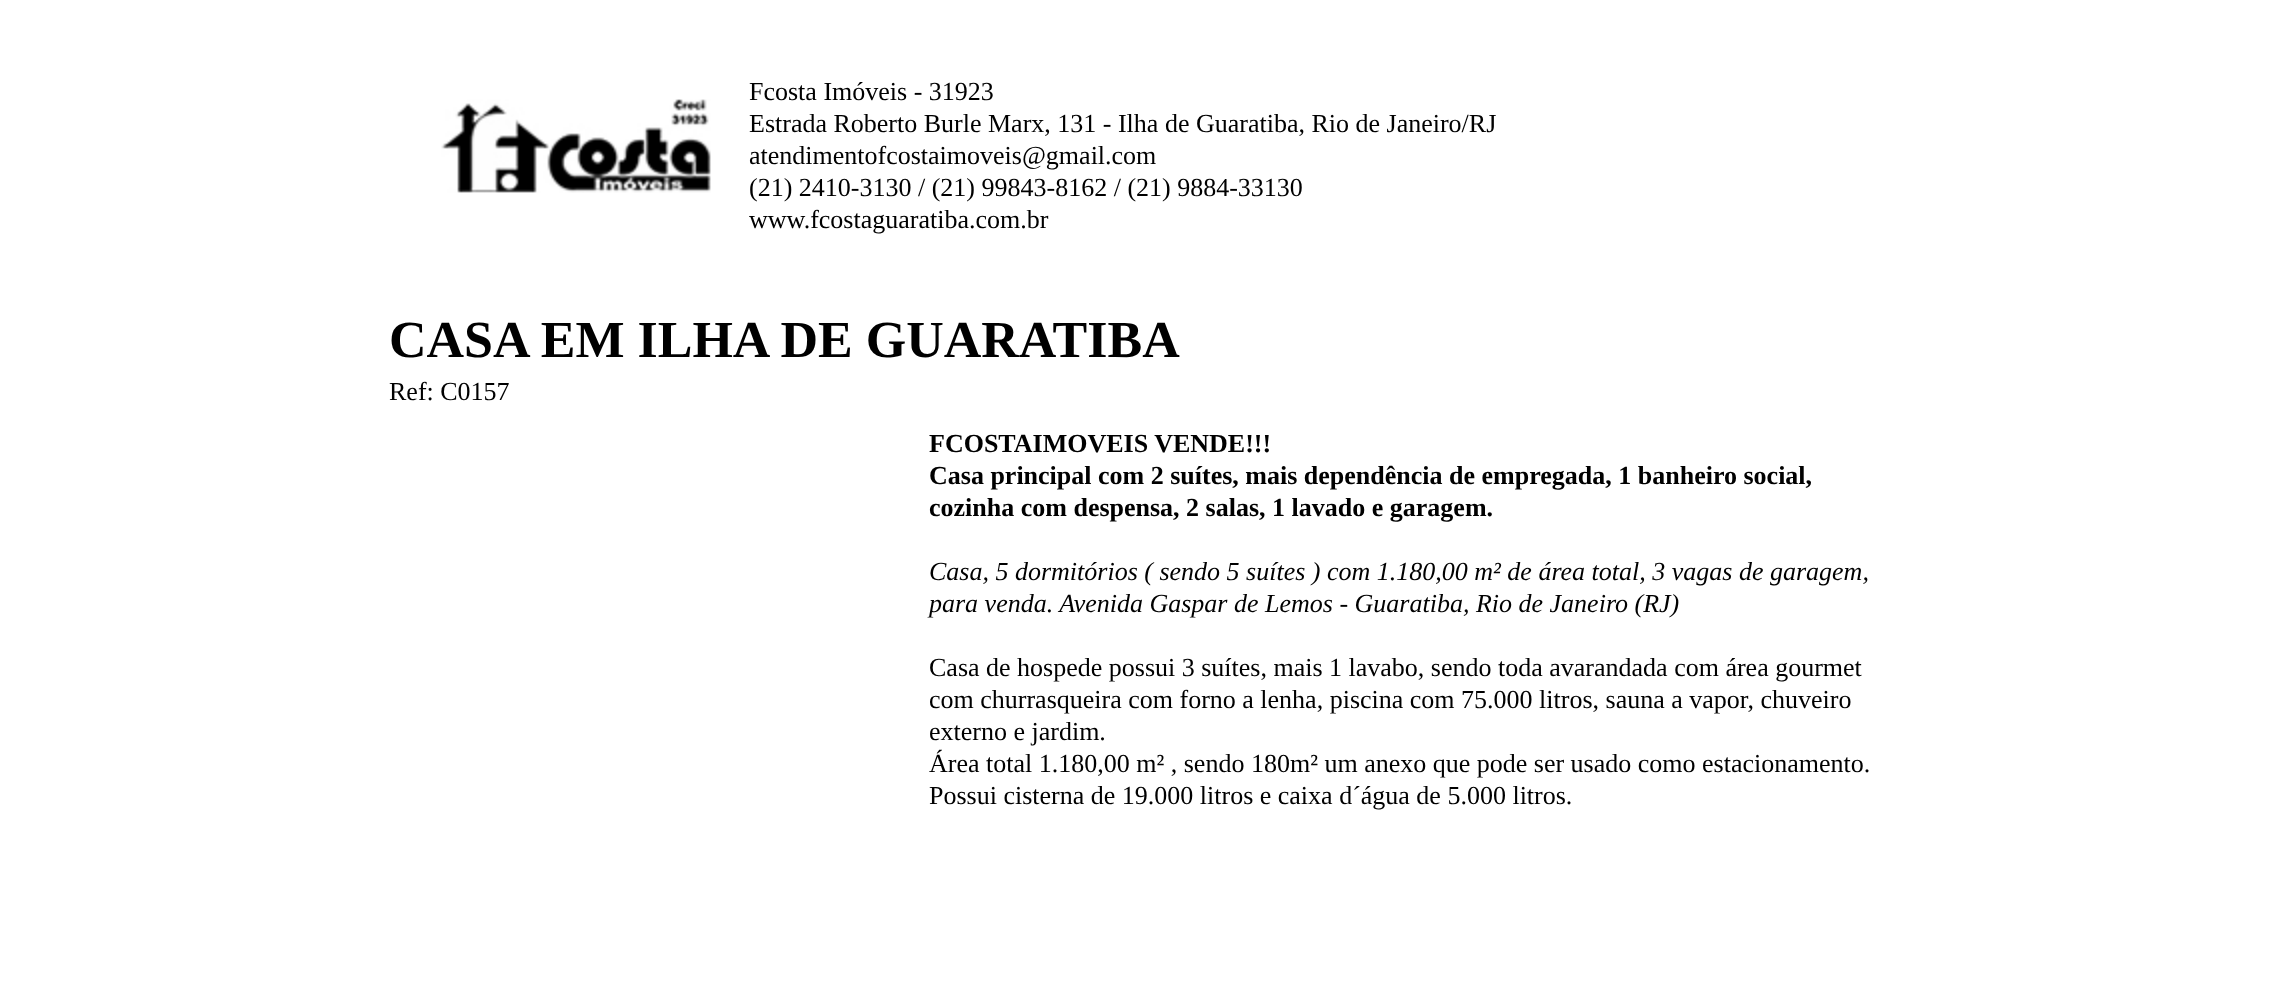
(async () => {
const canvas = document.querySelector("canvas")
canvas.width = 2277
canvas.height = 988
const c = canvas.getContext("2d")
c.miterLimit = 4
c.fontKerning = "normal"
function T(s,x,y){c.fillText(s,x,y)}
function R(x,y,w,h){c.fillRect(x,y,w,h)}
async function I(src,x,y,w,h){const img=new Image();img.src=src;await img.decode();c.drawImage(img,x,y,w,h)}
c.fillStyle="#fff"
R(0,0,2277,988)
await I("1.png",441,99,270,94)
c.font="26px Liberation Serif"
c.fillStyle="#000"
T("Fcosta Imóveis - 31923",749,100)
T("Estrada Roberto Burle Marx, 131 - Ilha de Guaratiba, Rio de Janeiro/RJ",749,132)
T("atendimentofcostaimoveis@gmail.com",749,164)
T("(21) 2410-3130 / (21) 99843-8162 / (21) 9884-33130",749,196)
T("www.fcostaguaratiba.com.br",749,228)
c.font="bold 52px Liberation Serif"
T("CASA EM ILHA DE GUARATIBA",389,357)
c.font="26px Liberation Serif"
T("Ref: C0157",389,400)
c.font="bold 26px Liberation Serif"
T("FCOSTAIMOVEIS VENDE!!!",929,452)
T("Casa principal com 2 suítes, mais dependência de empregada, 1 banheiro social,",929,484)
T("cozinha com despensa, 2 salas, 1 lavado e garagem.",929,516)
c.font="italic 26px Liberation Serif"
T("Casa, 5 dormitórios ( sendo 5 suítes ) com 1.180,00 m² de área total, 3 vagas de garagem,",929,580)
T("para venda. Avenida Gaspar de Lemos - Guaratiba, Rio de Janeiro (RJ)",929,612)
c.font="26px Liberation Serif"
T("Casa de hospede possui 3 suítes, mais 1 lavabo, sendo toda avarandada com área gourmet",929,676)
T("com churrasqueira com forno a lenha, piscina com 75.000 litros, sauna a vapor, chuveiro",929,708)
T("externo e jardim.",929,740)
T("Área total 1.180,00 m² , sendo 180m² um anexo que pode ser usado como estacionamento.",929,772)
T("Possui cisterna de 19.000 litros e caixa d´água de 5.000 litros.",929,804)
})()
